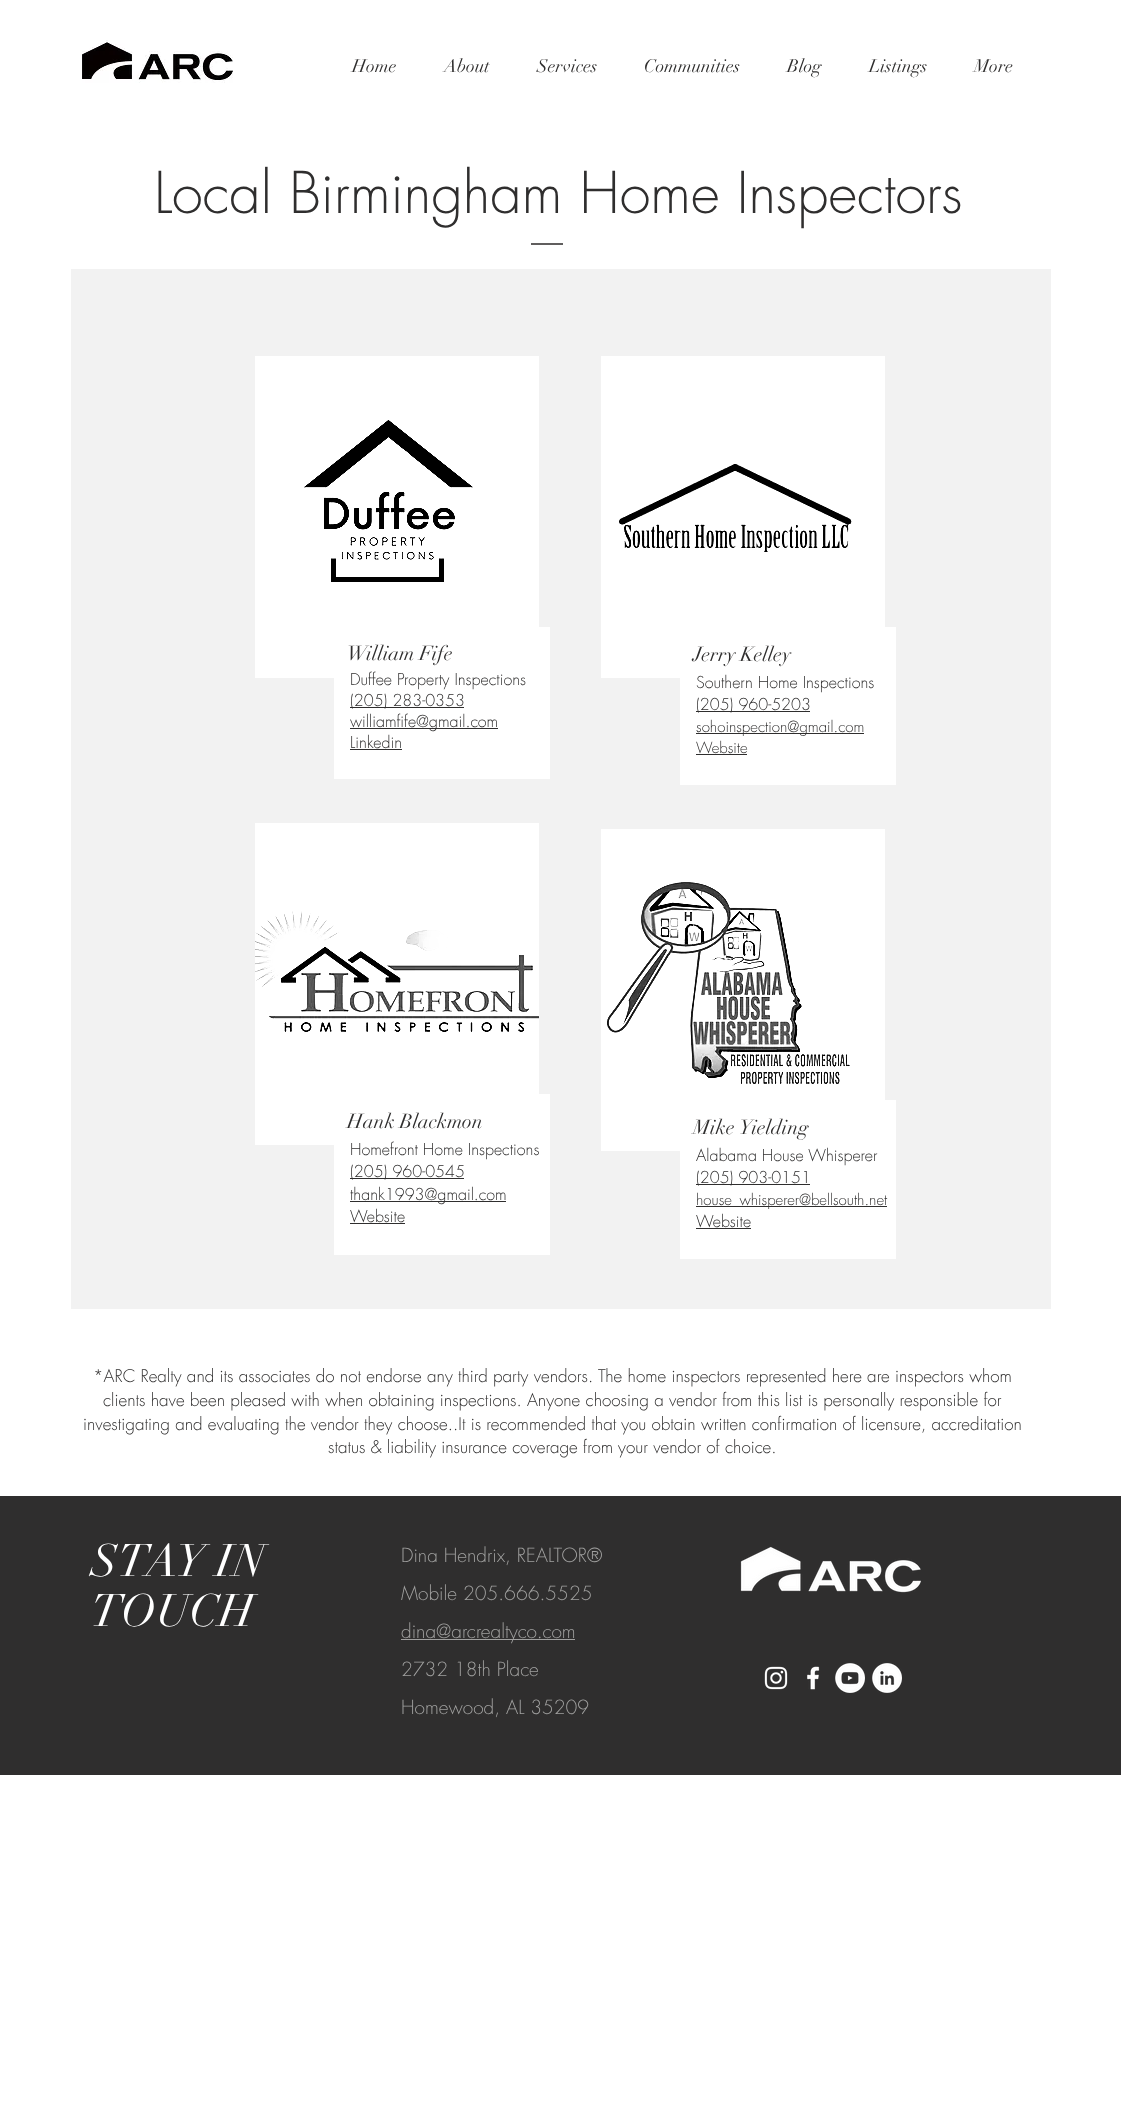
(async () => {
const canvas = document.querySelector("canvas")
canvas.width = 1121
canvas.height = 2108
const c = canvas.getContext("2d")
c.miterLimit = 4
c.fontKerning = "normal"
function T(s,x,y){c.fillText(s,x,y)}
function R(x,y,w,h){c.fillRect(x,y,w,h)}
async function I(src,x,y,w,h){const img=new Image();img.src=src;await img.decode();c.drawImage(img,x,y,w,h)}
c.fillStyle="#fff"
R(0,0,1121,2108)
await I("1.png",82,40,151,43)
c.font="18px didot"
c.fillStyle="#2f2e2e"
T("Home",352,72)
T("About",444,72)
T("Services",537,72)
T("Communities",644,72)
T("Blog",787,72)
T("Listings",869,72)
T("More",974,72)
c.font="300 56px futura"
T("Local Birmingham Home Inspectors",154,213)
c.fillStyle="#605e5e"
R(531,243,32,2)
c.fillStyle="#f2f2f2"
R(71,269,980,1040)
await I("2.png",255,356,284,322)
c.fillStyle="#fff"
R(334,627,216,152)
c.font="20px didot"
c.fillStyle="#2f2e2e"
T("William Fife",347,660)
c.font="300 16px futura"
T("Duffee Property Inspections",350,685)
R(350,707,114,1)
T("(205) 283-0353",350,706)
R(350,728,148,1)
T("williamfife@gmail.com",350,727)
T("Linkedin",350,748)
R(350,749,52,1)
await I("3.png",255,823,284,322)
c.fillStyle="#fff"
R(334,1094,216,161)
c.font="20px didot"
c.fillStyle="#2f2e2e"
T("Hank Blackmon",347,1128)
c.font="300 16px futura"
T("Homefront Home Inspections",350,1155)
R(350,1178,114,1)
T("(205) 960-0545",350,1177)
R(350,1201,156,1)
T("thank1993@gmail.com",350,1200)
T("Website",350,1222)
R(350,1223,55,1)
await I("4.png",601,356,284,322)
c.fillStyle="#fff"
R(680,627,216,158)
c.font="20px didot"
c.fillStyle="#2f2e2e"
T("Jerry Kelley",693,661)
c.font="300 16px futura"
T("Southern Home Inspections",696,688)
R(696,711,114,1)
T("(205) 960-5203",696,710)
R(696,733,168,1)
c.font="300 15px futura"
T("sohoinspection@gmail.com",696,732)
T("Website",696,753)
R(696,754,51,1)
await I("5.png",601,829,284,322)
c.fillStyle="#fff"
R(680,1100,216,159)
c.font="20px didot"
c.fillStyle="#2f2e2e"
T("Mike Yielding",693,1134)
c.font="300 16px futura"
T("Alabama House Whisperer",696,1161)
R(696,1184,114,1)
T("(205) 903-0151",696,1183)
R(696,1206,191,1)
c.font="300 15px futura"
T("house_whisperer@bellsouth.net",696,1205)
c.font="300 16px futura"
T("Website",696,1227)
R(696,1228,55,1)
c.font="300 17px futura"
T("*ARC Realty and its associates do not endorse any third party vendors. The home inspectors represented here are inspectors whom",93,1382)
T("clients have been pleased with when obtaining inspections. Anyone choosing a vendor from this list is personally responsible for",103,1406)
T("investigating and evaluating the vendor they choose..It is recommended that you obtain written confirmation of licensure, accreditation",83,1430)
T("status & liability insurance coverage from your vendor of choice.",328,1453)
R(0,1496,1121,279)
c.font="45px didot"
c.fillStyle="#fff"
T("STAY IN",91,1576)
T("TOUCH",91,1626)
c.font="300 19px futura"
c.fillStyle="#a0a09f"
T("Dina Hendrix, REALTOR®",401,1562)
T("Mobile 205.666.5525",401,1600)
R(401,1639,174,1)
T("dina@arcrealtyco.com",401,1638)
T("2732 18th Place",401,1676)
T("Homewood, AL 35209",401,1714)
await I("6.png",740,1546,181,47)
await I("7.png",764,1666,24,24)
await I("8.png",807,1666,13,24)
await I("9.png",835,1663,30,30)
await I("10.png",872,1663,30,30)
})()
